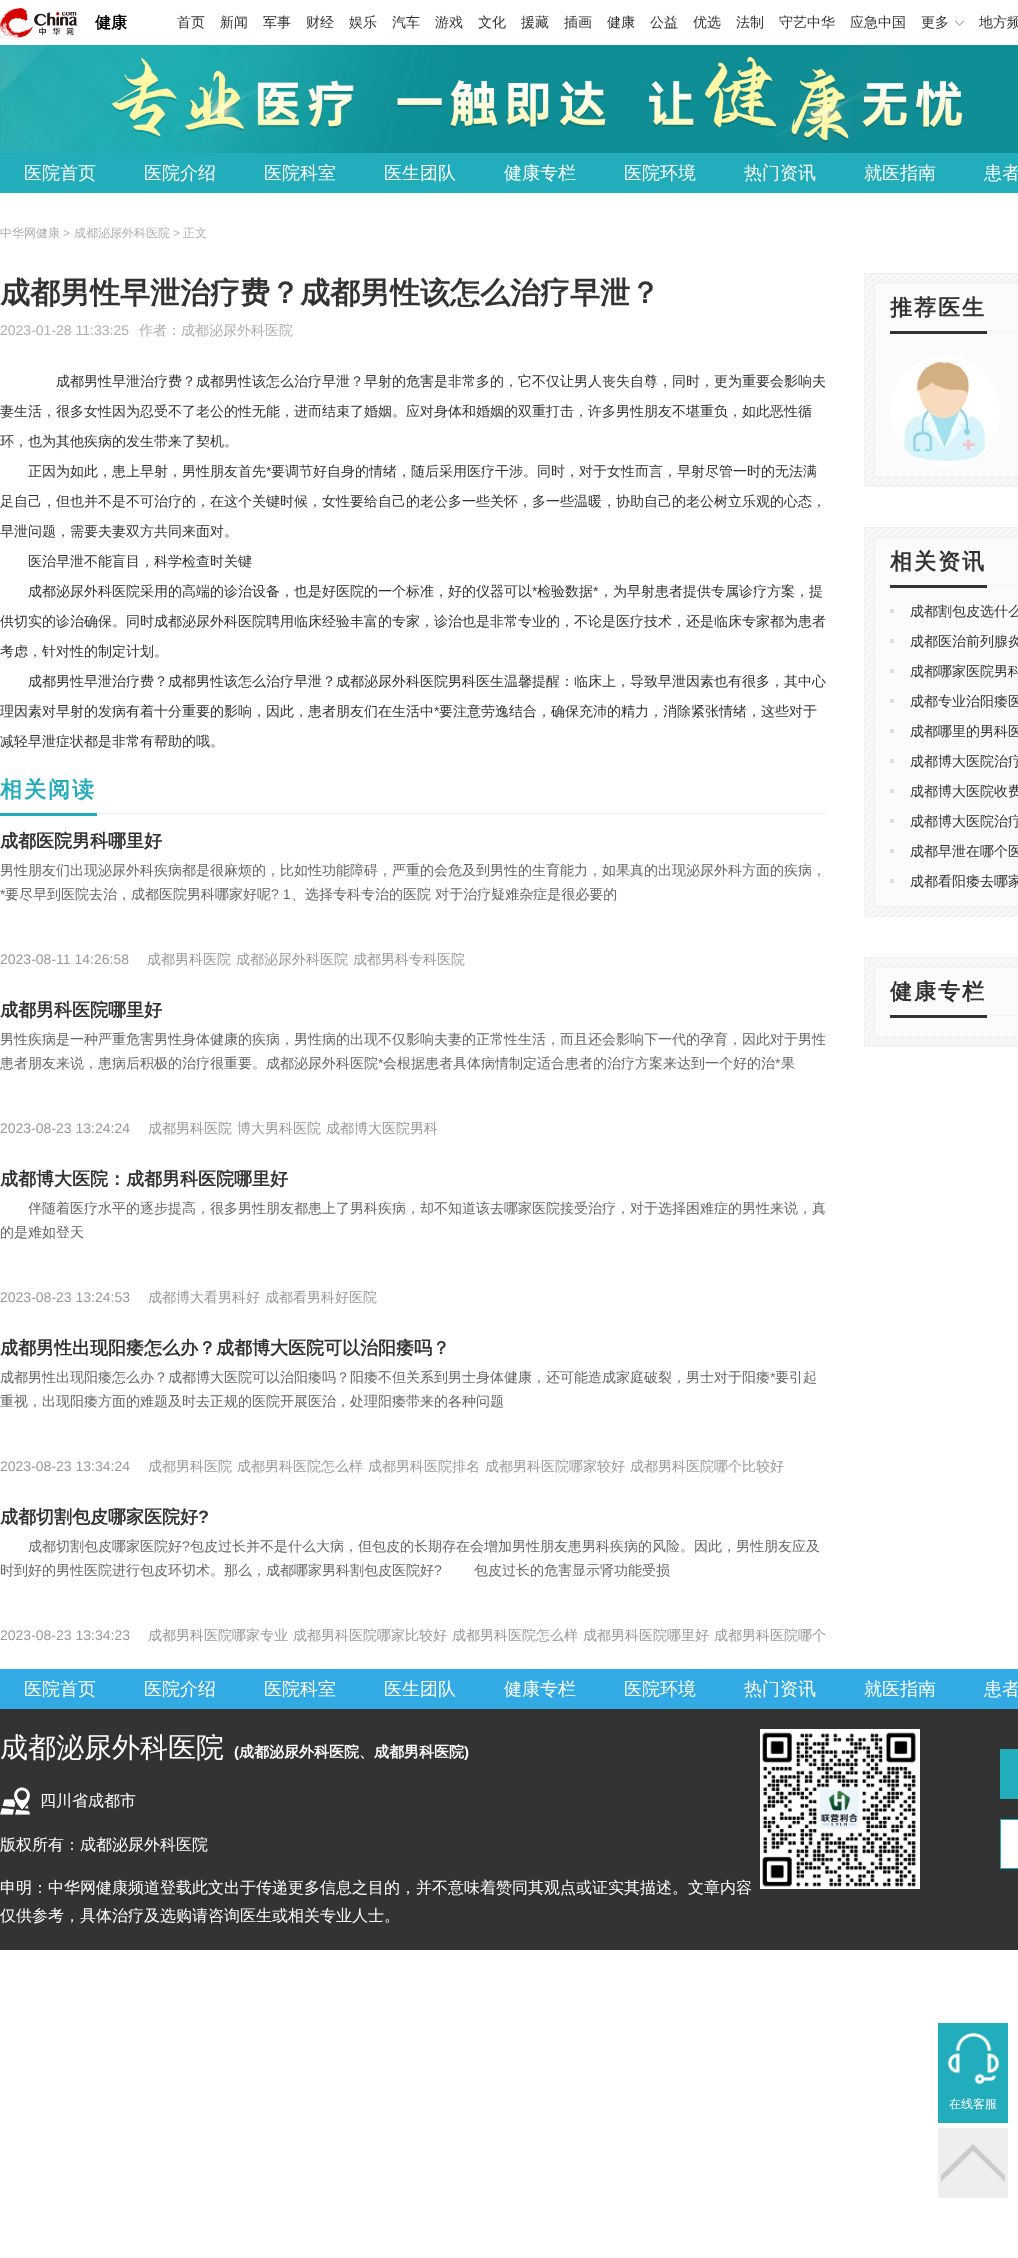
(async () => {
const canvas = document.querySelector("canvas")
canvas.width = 1018
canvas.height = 2258
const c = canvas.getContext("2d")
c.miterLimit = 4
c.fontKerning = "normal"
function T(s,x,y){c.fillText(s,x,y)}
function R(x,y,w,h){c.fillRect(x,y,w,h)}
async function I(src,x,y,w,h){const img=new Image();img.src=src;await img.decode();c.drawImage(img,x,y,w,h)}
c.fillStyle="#fff"
R(0,0,1018,2258)
await I("1.png",0,8,78,30)
c.font="bold 16px WenQuanYi Zen Hei"
c.fillStyle="#000"
T("健康",95,28)
c.font="500 14px WenQuanYi Zen Hei"
c.fillStyle="#333"
T("首页",177,27)
T("新闻",220,27)
T("军事",263,27)
T("财经",306,27)
T("娱乐",349,27)
T("汽车",392,27)
T("游戏",435,27)
T("文化",478,27)
T("援藏",521,27)
T("插画",564,27)
T("健康",607,27)
T("公益",650,27)
T("优选",693,27)
T("法制",736,27)
T("守艺中华",779,27)
T("应急中国",850,27)
T("更多",921,27)
await I("2.png",955,20,9,6)
T("地方频",979,27)
await I("3.png",0,45,1018,108)
c.fillStyle="#21adbb"
R(0,153,1018,40)
c.font="500 18px WenQuanYi Zen Hei"
c.fillStyle="#fff"
T("医院首页",24,179)
T("医院介绍",144,179)
T("医院科室",264,179)
T("医生团队",384,179)
T("健康专栏",504,179)
T("医院环境",624,179)
T("热门资讯",744,179)
T("就医指南",864,179)
T("患者",984,179)
c.font="500 12px WenQuanYi Zen Hei"
c.fillStyle="#afafaf"
T("中华网健康",0,237)
c.font="12px Liberation Sans"
T(">",63,237)
c.font="500 12px WenQuanYi Zen Hei"
T("成都泌尿外科医院",74,237)
c.font="12px Liberation Sans"
T(">",173,237)
c.font="500 12px WenQuanYi Zen Hei"
T("正文",183,237)
c.font="bold 30px WenQuanYi Zen Hei"
c.fillStyle="#333"
T("成都男性早泄治疗费？成都男性该怎么治疗早泄？",0,303)
c.font="14px Liberation Sans"
c.fillStyle="#afafaf"
T("2023-01-28 11:33:25",0,335)
c.font="500 14px WenQuanYi Zen Hei"
T("作者：成都泌尿外科医院",139,335)
c.fillStyle="#333"
T("成都男性早泄治疗费？成都男性该怎么治疗早泄？早射的危害是非常多的，它不仅让男人丧失自尊，同时，更为重要会影响夫",56,386)
T("妻生活，很多女性因为忍受不了老公的性无能，进而结束了婚姻。应对身体和婚姻的双重打击，许多男性朋友不堪重负，如此恶性循",0,416)
T("环，也为其他疾病的发生带来了契机。",0,446)
T("正因为如此，患上早射，男性朋友首先",28,476)
c.font="14px Liberation Sans"
T("*",266,476)
c.font="500 14px WenQuanYi Zen Hei"
T("要调节好自身的情绪，随后采用医疗干涉。同时，对于女性而言，早射尽管一时的无法满",271,476)
T("足自己，但也并不是不可治疗的，在这个关键时候，女性要给自己的老公多一些关怀，多一些温暖，协助自己的老公树立乐观的心态，",0,506)
T("早泄问题，需要夫妻双方共同来面对。",0,536)
T("医治早泄不能盲目，科学检查时关键",28,566)
T("成都泌尿外科医院采用的高端的诊治设备，也是好医院的一个标准，好的仪器可以",28,596)
c.font="14px Liberation Sans"
T("*",532,596)
c.font="500 14px WenQuanYi Zen Hei"
T("检验数据",537,596)
c.font="14px Liberation Sans"
T("*",593,596)
c.font="500 14px WenQuanYi Zen Hei"
T("，为早射患者提供专属诊疗方案，提",599,596)
T("供切实的诊治确保。同时成都泌尿外科医院聘用临床经验丰富的专家，诊治也是非常专业的，不论是医疗技术，还是临床专家都为患者",0,626)
T("考虑，针对性的制定计划。",0,656)
T("成都男性早泄治疗费？成都男性该怎么治疗早泄？成都泌尿外科医院男科医生温馨提醒：临床上，导致早泄因素也有很多，其中心",28,686)
T("理因素对早射的发病有着十分重要的影响，因此，患者朋友们在生活中",0,716)
c.font="14px Liberation Sans"
T("*",434,716)
c.font="500 14px WenQuanYi Zen Hei"
T("要注意劳逸结合，确保充沛的精力，消除紧张情绪，这些对于",439,716)
T("减轻早泄症状都是非常有帮助的哦。",0,746)
c.fillStyle="#f2f2f2"
R(97,813,729,1)
c.fillStyle="#21adbb"
R(0,813,97,3)
c.letterSpacing="2px"
c.font="bold 22px WenQuanYi Zen Hei"
T("相关阅读",0,797)
c.letterSpacing="0px"
c.font="bold 18px WenQuanYi Zen Hei"
c.fillStyle="#333"
T("成都医院男科哪里好",0,847)
c.font="500 14px WenQuanYi Zen Hei"
c.fillStyle="#666"
T("男性朋友们出现泌尿外科疾病都是很麻烦的，比如性功能障碍，严重的会危及到男性的生育能力，如果真的出现泌尿外科方面的疾病，",0,875)
c.font="14px Liberation Sans"
T("*",0,899)
c.font="500 14px WenQuanYi Zen Hei"
T("要尽早到医院去治，成都医院男科哪家好呢",5,899)
c.font="14px Liberation Sans"
T("? 1",271,899)
c.font="500 14px WenQuanYi Zen Hei"
T("、选择专科专治的医院 对于治疗疑难杂症是很必要的",291,899)
c.font="14px Liberation Sans"
c.fillStyle="#999"
T("2023-08-11 14:26:58",0,964)
c.font="500 14px WenQuanYi Zen Hei"
T("成都男科医院",147,964)
T("成都泌尿外科医院",236,964)
T("成都男科专科医院",353,964)
c.font="bold 18px WenQuanYi Zen Hei"
c.fillStyle="#333"
T("成都男科医院哪里好",0,1016)
c.font="500 14px WenQuanYi Zen Hei"
c.fillStyle="#666"
T("男性疾病是一种严重危害男性身体健康的疾病，男性病的出现不仅影响夫妻的正常性生活，而且还会影响下一代的孕育，因此对于男性",0,1044)
T("患者朋友来说，患病后积极的治疗很重要。成都泌尿外科医院",0,1068)
c.font="14px Liberation Sans"
T("*",378,1068)
c.font="500 14px WenQuanYi Zen Hei"
T("会根据患者具体病情制定适合患者的治疗方案来达到一个好的治",383,1068)
c.font="14px Liberation Sans"
T("*",775,1068)
c.font="500 14px WenQuanYi Zen Hei"
T("果",781,1068)
c.font="14px Liberation Sans"
c.fillStyle="#999"
T("2023-08-23 13:24:24",0,1133)
c.font="500 14px WenQuanYi Zen Hei"
T("成都男科医院",148,1133)
T("博大男科医院",237,1133)
T("成都博大医院男科",326,1133)
c.font="bold 18px WenQuanYi Zen Hei"
c.fillStyle="#333"
T("成都博大医院：成都男科医院哪里好",0,1185)
c.font="500 14px WenQuanYi Zen Hei"
c.fillStyle="#666"
T("伴随着医疗水平的逐步提高，很多男性朋友都患上了男科疾病，却不知道该去哪家医院接受治疗，对于选择困难症的男性来说，真",28,1213)
T("的是难如登天",0,1237)
c.font="14px Liberation Sans"
c.fillStyle="#999"
T("2023-08-23 13:24:53",0,1302)
c.font="500 14px WenQuanYi Zen Hei"
T("成都博大看男科好",148,1302)
T("成都看男科好医院",265,1302)
c.font="bold 18px WenQuanYi Zen Hei"
c.fillStyle="#333"
T("成都男性出现阳痿怎么办？成都博大医院可以治阳痿吗？",0,1354)
c.font="500 14px WenQuanYi Zen Hei"
c.fillStyle="#666"
T("成都男性出现阳痿怎么办？成都博大医院可以治阳痿吗？阳痿不但关系到男士身体健康，还可能造成家庭破裂，男士对于阳痿",0,1382)
c.font="14px Liberation Sans"
T("*",770,1382)
c.font="500 14px WenQuanYi Zen Hei"
T("要引起",775,1382)
T("重视，出现阳痿方面的难题及时去正规的医院开展医治，处理阳痿带来的各种问题",0,1406)
c.font="14px Liberation Sans"
c.fillStyle="#999"
T("2023-08-23 13:34:24",0,1471)
c.font="500 14px WenQuanYi Zen Hei"
T("成都男科医院",148,1471)
T("成都男科医院怎么样",237,1471)
T("成都男科医院排名",368,1471)
T("成都男科医院哪家较好",485,1471)
T("成都男科医院哪个比较好",630,1471)
c.font="bold 18px WenQuanYi Zen Hei"
c.fillStyle="#333"
T("成都切割包皮哪家医院好",0,1523)
c.font="bold 18px Liberation Sans"
T("?",198,1523)
c.font="500 14px WenQuanYi Zen Hei"
c.fillStyle="#666"
T("成都切割包皮哪家医院好",28,1551)
c.font="14px Liberation Sans"
T("?",182,1551)
c.font="500 14px WenQuanYi Zen Hei"
T("包皮过长并不是什么大病，但包皮的长期存在会增加男性朋友患男科疾病的风险。因此，男性朋友应及",190,1551)
T("时到好的男性医院进行包皮环切术。那么，成都哪家男科割包皮医院好",0,1575)
c.font="14px Liberation Sans"
T("?",434,1575)
c.font="500 14px WenQuanYi Zen Hei"
T("包皮过长的危害显示肾功能受损",474,1575)
c.font="14px Liberation Sans"
c.fillStyle="#999"
T("2023-08-23 13:34:23",0,1640)
c.font="500 14px WenQuanYi Zen Hei"
T("成都男科医院哪家专业",148,1640)
T("成都男科医院哪家比较好",293,1640)
T("成都男科医院怎么样",452,1640)
T("成都男科医院哪里好",583,1640)
T("成都男科医院哪个",714,1640)
await I("4.png",865,274,153,212)
c.strokeStyle="#f0f0f0"
c.strokeRect(864.5,273.5,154,213)
c.fillStyle="#ffffff99"
c.beginPath()
c.rect(874.5,283.5,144,193)
c.fill()
c.stroke()
c.fillStyle="#f2f2f2"
R(987,331,31,1)
c.fillStyle="#333"
R(890,331,97,3)
c.letterSpacing="2px"
c.font="bold 22px WenQuanYi Zen Hei"
T("推荐医生",890,315)
await I("5.png",890,356,110,110)
await I("6.png",865,528,153,388)
c.strokeRect(864.5,527.5,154,389)
c.fillStyle="#ffffff99"
c.beginPath()
c.rect(874.5,537.5,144,369)
c.fill()
c.stroke()
c.fillStyle="#f2f2f2"
R(987,585,31,1)
c.fillStyle="#333"
R(890,585,97,3)
T("相关资讯",890,569)
c.fillStyle="#ddd"
R(890,609,4,4)
c.letterSpacing="0px"
c.font="500 14px WenQuanYi Zen Hei"
c.fillStyle="#333"
T("成都割包皮选什么",910,616)
c.fillStyle="#ddd"
R(890,639,4,4)
c.fillStyle="#333"
T("成都医治前列腺炎",910,646)
c.fillStyle="#ddd"
R(890,669,4,4)
c.fillStyle="#333"
T("成都哪家医院男科",910,676)
c.fillStyle="#ddd"
R(890,699,4,4)
c.fillStyle="#333"
T("成都专业治阳痿医",910,706)
c.fillStyle="#ddd"
R(890,729,4,4)
c.fillStyle="#333"
T("成都哪里的男科医",910,736)
c.fillStyle="#ddd"
R(890,759,4,4)
c.fillStyle="#333"
T("成都博大医院治疗",910,766)
c.fillStyle="#ddd"
R(890,789,4,4)
c.fillStyle="#333"
T("成都博大医院收费",910,796)
c.fillStyle="#ddd"
R(890,819,4,4)
c.fillStyle="#333"
T("成都博大医院治疗",910,826)
c.fillStyle="#ddd"
R(890,849,4,4)
c.fillStyle="#333"
T("成都早泄在哪个医",910,856)
c.fillStyle="#ddd"
R(890,879,4,4)
c.fillStyle="#333"
T("成都看阳痿去哪家",910,886)
await I("7.png",865,958,153,88)
c.strokeRect(864.5,957.5,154,89)
c.fillStyle="#ffffff99"
c.beginPath()
c.rect(874.5,967.5,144,69)
c.fill()
c.stroke()
c.fillStyle="#f2f2f2"
R(987,1015,31,1)
c.fillStyle="#333"
R(890,1015,97,3)
c.letterSpacing="2px"
c.font="bold 22px WenQuanYi Zen Hei"
T("健康专栏",890,999)
c.fillStyle="#32abe4"
R(0,1669,1018,40)
c.letterSpacing="0px"
c.font="500 18px WenQuanYi Zen Hei"
c.fillStyle="#fff"
T("医院首页",24,1695)
T("医院介绍",144,1695)
T("医院科室",264,1695)
T("医生团队",384,1695)
T("健康专栏",504,1695)
T("医院环境",624,1695)
T("热门资讯",744,1695)
T("就医指南",864,1695)
T("患者",984,1695)
c.fillStyle="#333"
R(0,1709,1018,241)
c.font="500 28px WenQuanYi Zen Hei"
c.fillStyle="#fff"
T("成都泌尿外科医院",0,1757)
c.font="bold 15px Liberation Sans"
T("(",234,1757)
c.font="bold 15px WenQuanYi Zen Hei"
T("成都泌尿外科医院、成都男科医院",239,1757)
c.font="bold 15px Liberation Sans"
T(")",464,1757)
await I("8.png",0,1787,30,28)
c.font="500 16px WenQuanYi Zen Hei"
T("四川省成都市",40,1806)
T("版权所有：成都泌尿外科医院",0,1850)
T("申明：中华网健康频道登载此文出于传递更多信息之目的，并不意味着赞同其观点或证实其描述。文章内容",0,1893)
T("仅供参考，具体治疗及选购请咨询医生或相关专业人士。",0,1921)
R(760,1729,160,160)
await I("9.png",762,1732,154,155)
c.fillStyle="#21adbb"
R(1000,1749,18,50)
c.fillStyle="#fff"
c.beginPath()
c.rect(1000.5,1819.5,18,49)
c.fill()
c.strokeStyle="#21adbb"
c.stroke()
c.fillStyle="#21adbb"
R(938,2023,70,100)
await I("10.png",948,2033,51,51)
c.font="500 12px WenQuanYi Zen Hei"
c.fillStyle="#fff"
T("在线客服",949,2108)
c.fillStyle="#eee"
R(938,2128,70,70)
await I("11.png",941,2144,64,38)
})()
